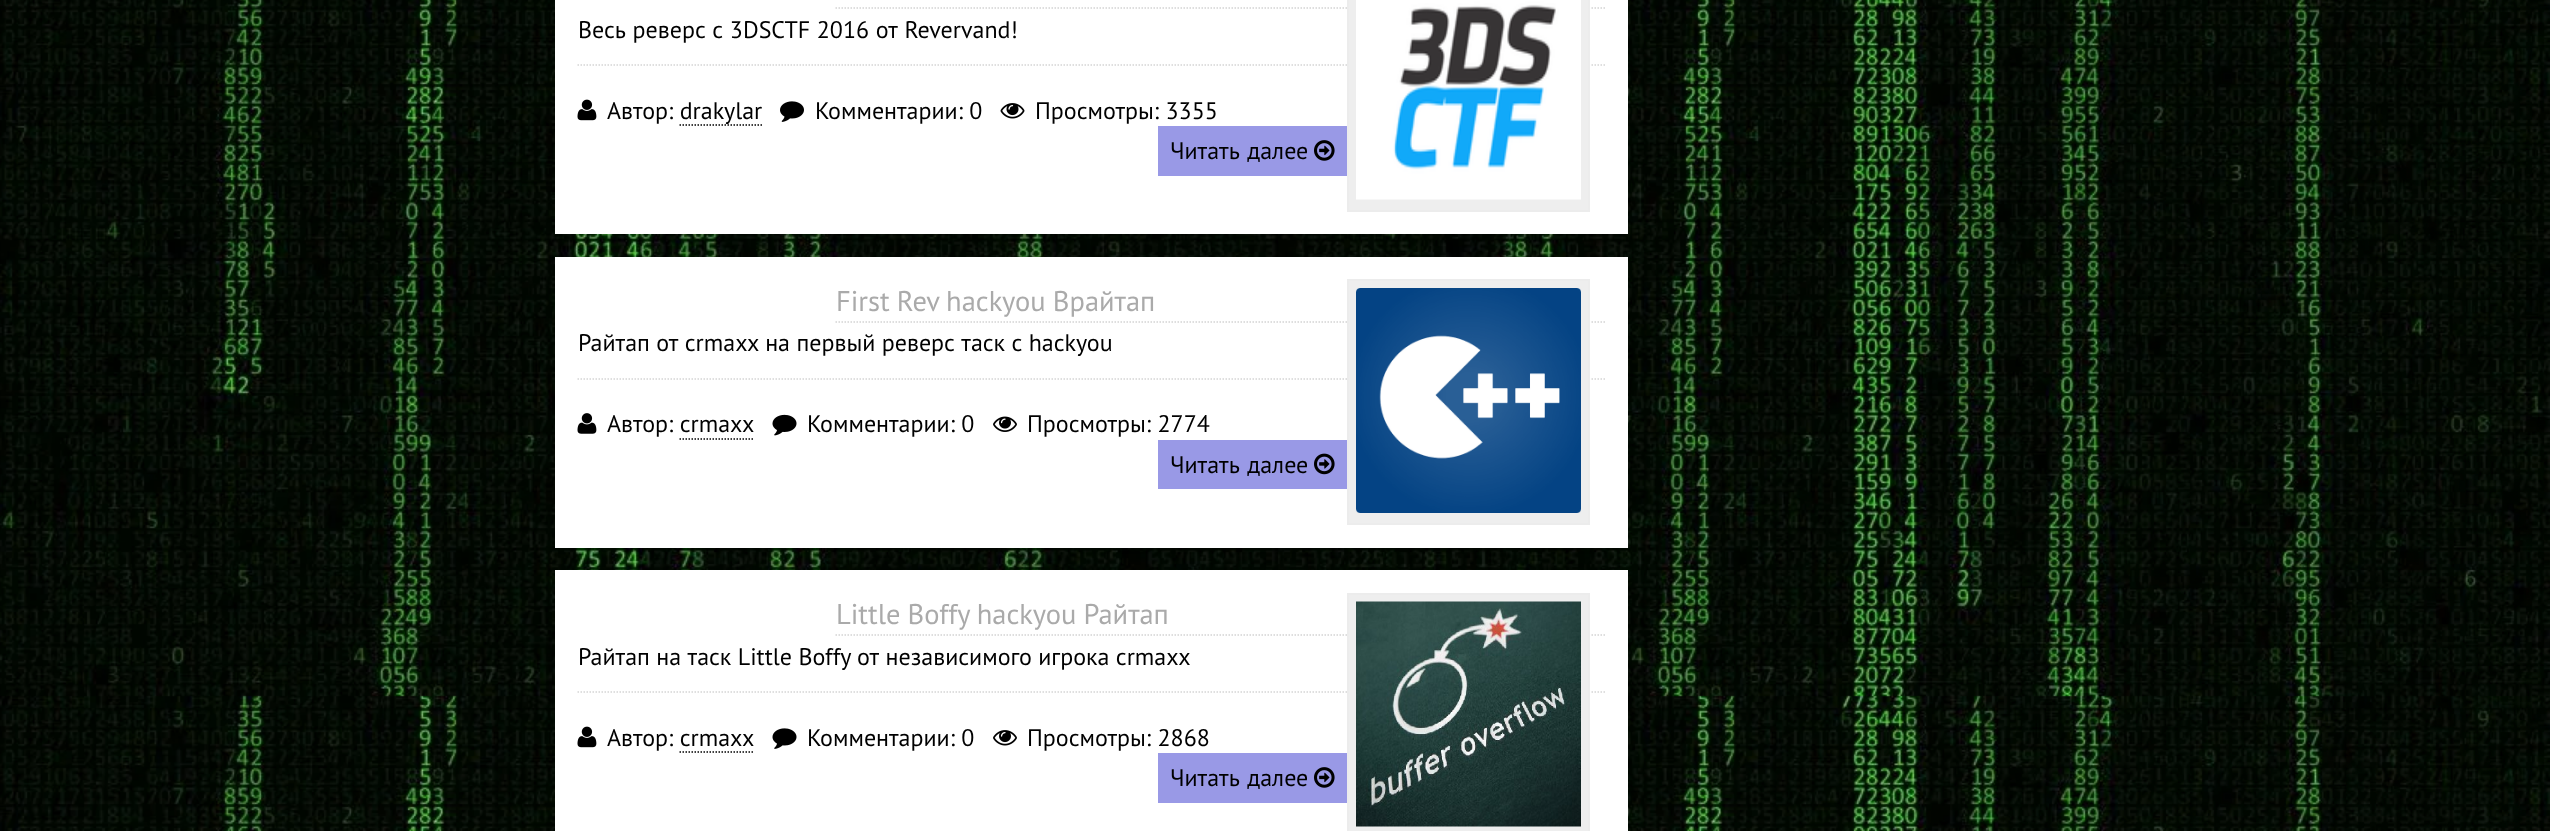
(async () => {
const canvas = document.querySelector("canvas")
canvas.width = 2550
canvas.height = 831
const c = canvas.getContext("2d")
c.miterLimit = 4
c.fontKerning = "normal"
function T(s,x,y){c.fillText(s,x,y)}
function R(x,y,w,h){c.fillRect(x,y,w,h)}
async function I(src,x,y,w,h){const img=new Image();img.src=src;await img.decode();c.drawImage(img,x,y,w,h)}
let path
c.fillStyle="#fff"
R(0,0,2550,831)
await I("1.png",0,0,2550,831)
c.fillStyle="#0000001a"
c.filter="blur(1.5px)"
c.beginPath()
c.rect(555,-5,1073,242)
c.fill()
c.filter="none"
c.fillStyle="#fff"
R(555,0,1073,234)
path = new Path2D("M835.5 8h769.5")
c.strokeStyle="#d3d3d3"
c.lineWidth=1.5
c.setLineDash([1.5,1.5])
c.stroke(path)
c.wordSpacing="0.25px"
c.font="24px PT Sans"
c.fillStyle="#000"
T("Весь реверс с 3DSCTF 2016 от Revervand!",578,38)
path = new Path2D("M577.5 65h1027.5")
c.strokeStyle="#d5d5d5"
c.stroke(path)
c.fillStyle="#eee"
c.beginPath()
c.rect(1348,-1,241,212)
c.fill()
c.strokeStyle="#ececec"
c.lineWidth=2
c.setLineDash([])
c.stroke()
await I("2.png",1356,0,225,200)
await I("3.png",577,99,20,22)
c.wordSpacing="0px"
c.fillStyle="#000"
T("Автор: drakylar",607,119)
path = new Path2D("M679.5 125h82.5")
c.strokeStyle="#000"
c.lineWidth=1.5
c.setLineDash([1.5,1.5])
c.stroke(path)
await I("4.png",780,101,24,21)
T("Комментарии: 0",815,119)
await I("5.png",1000,103,25,16)
T("Просмотры: 3355",1035,119)
c.fillStyle="#9999e6"
R(1158,126,189,50)
c.wordSpacing="1px"
c.fillStyle="#000"
T("Читать далее",1170,159)
await I("6.png",1314,140,21,21)
c.fillStyle="#0000001a"
c.filter="blur(1.5px)"
c.beginPath()
c.rect(555,260,1073,291)
c.fill()
c.filter="none"
c.fillStyle="#fff"
R(555,257,1073,291)
path = new Path2D("M835.5 322h769.5")
c.strokeStyle="#d3d3d3"
c.stroke(path)
c.wordSpacing="-0.5px"
c.font="28.5px PT Sans"
c.fillStyle="#aaa"
T("First Rev hackyou Врайтап",836,311)
c.wordSpacing="0px"
c.font="24px PT Sans"
c.fillStyle="#000"
T("Райтап от crmaxx на первый реверс таск с hackyou",578,351)
path = new Path2D("M577.5 379h1027.5")
c.strokeStyle="#d5d5d5"
c.stroke(path)
c.fillStyle="#eee"
c.beginPath()
c.rect(1348,280,241,244)
c.fill()
c.strokeStyle="#ececec"
c.lineWidth=2
c.setLineDash([])
c.stroke()
await I("7.png",1356,288,225,225)
await I("8.png",577,413,20,21)
c.fillStyle="#000"
T("Автор: crmaxx",607,432)
path = new Path2D("M679.5 439h75")
c.strokeStyle="#000"
c.lineWidth=1.5
c.setLineDash([1.5,1.5])
c.stroke(path)
await I("9.png",772,414,25,22)
T("Комментарии: 0",807,432)
await I("10.png",993,416,24,16)
T("Просмотры: 2774",1027,432)
c.fillStyle="#9999e6"
R(1158,440,189,49)
c.wordSpacing="1px"
c.fillStyle="#000"
T("Читать далее",1170,473)
await I("11.png",1314,453,21,22)
c.fillStyle="#0000001a"
c.filter="blur(1.5px)"
c.beginPath()
c.rect(555,573,1073,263)
c.fill()
c.filter="none"
c.fillStyle="#fff"
R(555,570,1073,261)
path = new Path2D("M835.5 635h769.5")
c.strokeStyle="#d3d3d3"
c.stroke(path)
c.wordSpacing="-0.5px"
c.font="28.5px PT Sans"
c.fillStyle="#aaa"
T("Little Boffy hackyou Райтап",836,624)
c.wordSpacing="0px"
c.font="24px PT Sans"
c.fillStyle="#000"
T("Райтап на таск Little Boffy от независимого игрока crmaxx",578,665)
path = new Path2D("M577.5 692h1027.5")
c.strokeStyle="#d5d5d5"
c.stroke(path)
c.fillStyle="#eee"
c.beginPath()
c.rect(1348,594,241,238)
c.fill()
c.strokeStyle="#ececec"
c.lineWidth=2
c.setLineDash([])
c.stroke()
await I("12.png",1356,601,225,226)
await I("3.png",577,726,20,22)
c.fillStyle="#000"
T("Автор: crmaxx",607,746)
path = new Path2D("M679.5 752h75")
c.strokeStyle="#000"
c.lineWidth=1.5
c.setLineDash([1.5,1.5])
c.stroke(path)
await I("13.png",772,728,25,21)
T("Комментарии: 0",807,746)
await I("14.png",993,730,24,16)
T("Просмотры: 2868",1027,746)
c.fillStyle="#9999e6"
R(1158,753,189,50)
c.wordSpacing="1px"
c.fillStyle="#000"
T("Читать далее",1170,786)
await I("6.png",1314,767,21,21)
})()
